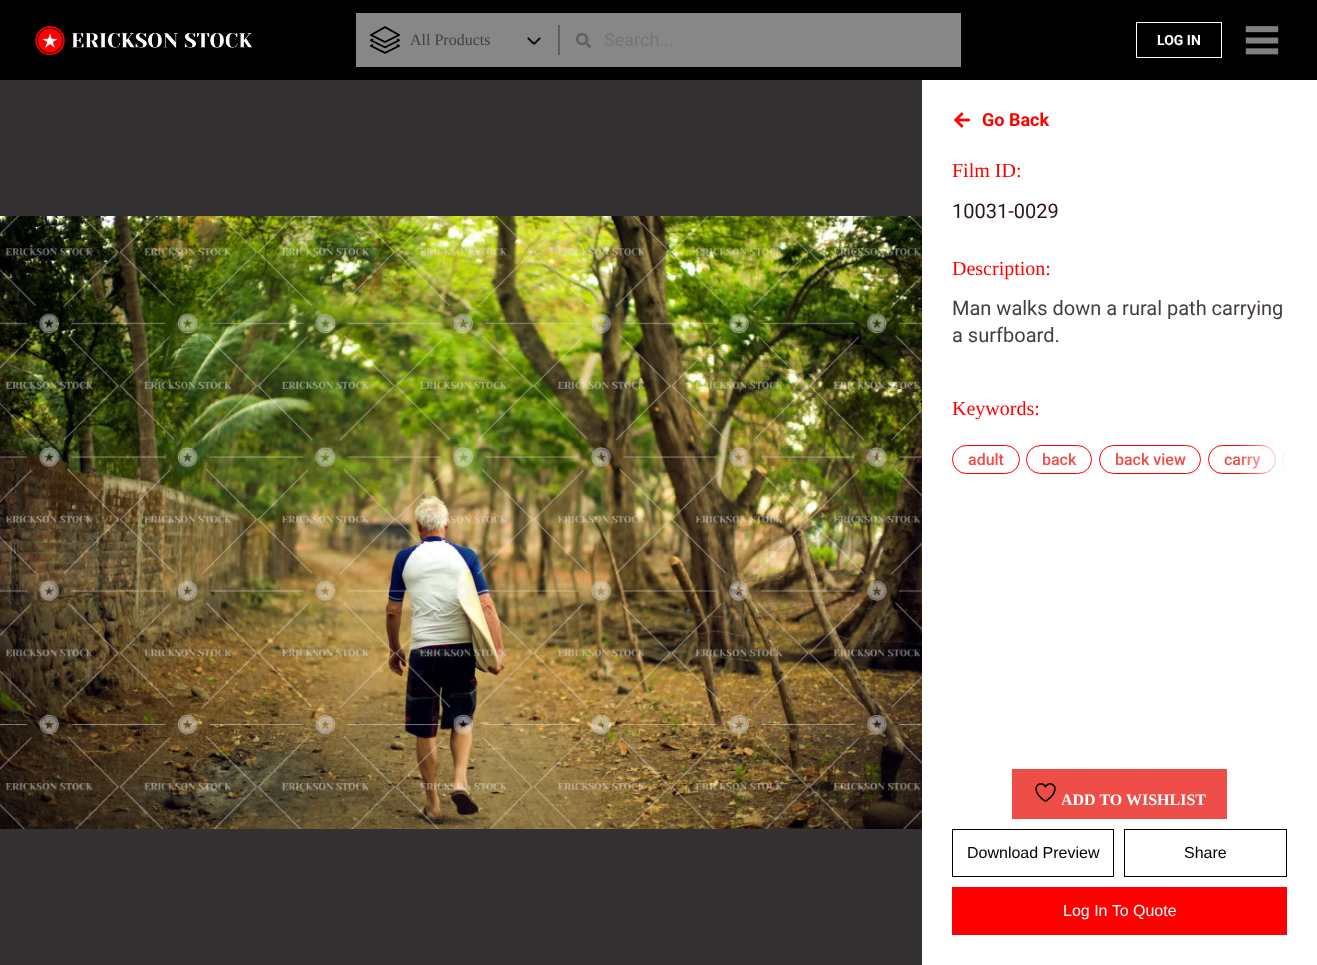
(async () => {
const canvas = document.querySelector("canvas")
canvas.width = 1317
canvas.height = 965
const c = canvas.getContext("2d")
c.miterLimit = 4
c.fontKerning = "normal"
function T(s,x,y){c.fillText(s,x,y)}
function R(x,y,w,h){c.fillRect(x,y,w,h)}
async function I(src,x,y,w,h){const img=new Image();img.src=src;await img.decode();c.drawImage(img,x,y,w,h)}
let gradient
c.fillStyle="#fff"
R(0,0,1317,965)
c.fillStyle="#000"
R(0,0,1317,80)
await I("1.png",35,25,218,30)
c.fillStyle="#878787"
R(356,13,605,54)
await I("2.png",370,26,30,28)
c.font="16px Liberation Serif"
c.fillStyle="#453e3e"
T("All Products",410,45)
await I("3.png",527,37,14,8)
c.fillStyle="#5c5f63"
R(558,25,2,30)
await I("4.png",576,33,15,15)
c.font="18px Roboto"
c.fillStyle="#757575"
T("Search...",604,46)
c.strokeStyle="#fff"
c.strokeRect(1136.5,22.5,85,35)
c.font="bold 14px Roboto"
c.fillStyle="#fff"
T("LOG IN",1157,45)
await I("5.png",1245,26,34,29)
c.fillStyle="#333131"
R(0,80,922,885)
await I("6.png",0,216,922,613)
await I("7.png",954,112,16,16)
c.font="bold 18px Roboto"
c.fillStyle="#f00"
T("Go Back",982,126)
c.font="20px Liberation Serif"
T("Film ID:",952,177)
c.font="20px Roboto"
c.fillStyle="#2b161b"
T("10031-0029",952,218)
c.font="20px Liberation Serif"
c.fillStyle="#f00"
T("Description:",952,275)
c.font="20px Roboto"
c.fillStyle="#453e3e"
T("Man walks down a rural path carrying",952,315)
T("a surfboard.",952,342)
c.font="20px Liberation Serif"
c.fillStyle="#f00"
T("Keywords:",952,415)
c.beginPath()
c.roundRect(952.5,445.5,67,28,14)
c.strokeStyle="#f00"
c.stroke()
c.font="500 16px Roboto"
c.fillStyle="#ef4d48"
T("adult",968,465)
c.beginPath()
c.roundRect(1026.5,445.5,65,28,14)
c.stroke()
T("back",1042,465)
c.beginPath()
c.roundRect(1099.5,445.5,101,28,14)
c.stroke()
T("back view",1115,465)
c.beginPath()
c.roundRect(1208.5,445.5,67,28,14)
c.stroke()
T("carry",1224,465)
c.save()
c.beginPath()
c.rect(952,435,335,60)
c.clip()
c.beginPath()
c.roundRect(1282.5,445.5,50,28,14)
c.stroke()
c.restore()
gradient = c.createLinearGradient(1287,465,1237,465)
gradient.addColorStop(0,"#fff")
gradient.addColorStop(1,"#ffffff00")
c.fillStyle = gradient
R(1238,445,49,29)
c.fillStyle="#ef4d48"
R(1012,769,215,50)
await I("8.png",1035,783,21,19)
c.font="bold 16px Liberation Serif"
c.fillStyle="#fff"
T("ADD TO WISHLIST",1061,805)
c.strokeStyle="#000"
c.strokeRect(952.5,829.5,161,47)
c.font="16px Liberation Sans"
c.fillStyle="#000"
T("Download Preview",967,858)
c.strokeRect(1124.5,829.5,162,47)
T("Share",1184,858)
c.fillStyle="#f00"
R(952,887,335,48)
c.fillStyle="#fff"
T("Log In To Quote",1063,916)
})()
